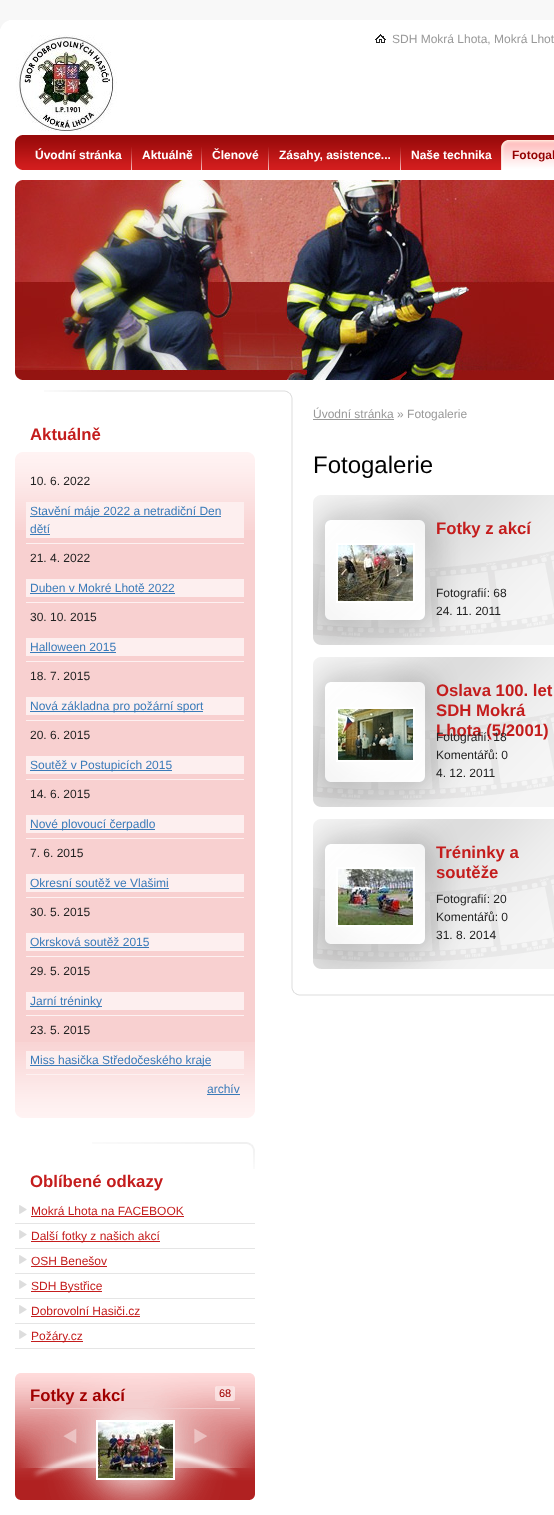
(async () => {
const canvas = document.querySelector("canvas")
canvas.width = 554
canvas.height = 1515
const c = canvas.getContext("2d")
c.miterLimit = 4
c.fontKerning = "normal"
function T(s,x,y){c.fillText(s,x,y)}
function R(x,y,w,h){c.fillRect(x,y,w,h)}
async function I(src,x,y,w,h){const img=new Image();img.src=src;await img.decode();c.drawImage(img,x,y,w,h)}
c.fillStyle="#f8f8f8"
R(0,0,554,1515)
c.fillStyle="#fff"
R(0,20,554,1495)
await I("1.png",0,20,9,9)
await I("2.png",16,35,101,96)
await I("3.png",375,34,11,9)
c.font="12px Liberation Sans"
c.fillStyle="#999"
T("SDH Mokrá Lhota, Mokrá Lhot",392,43)
await I("4.png",15,135,539,35)
await I("5.png",131,147,1,23)
c.font="bold 12px Liberation Sans"
c.fillStyle="#fff"
T("Úvodní stránka",35,159)
await I("5.png",201,147,1,23)
T("Aktuálně",142,159)
await I("5.png",268,147,1,23)
T("Členové",212,159)
await I("5.png",400,147,1,23)
T("Zásahy, asistence...",279,159)
T("Naše technika",411,159)
await I("6.png",508,140,46,30)
await I("7.png",501,140,7,30)
c.fillStyle="#930001"
T("Fotogal",512,159)
await I("8.png",15,180,539,200)
await I("9.png",15,180,7,8)
await I("10.png",15,372,7,8)
await I("11.png",44,390,211,2)
c.font="bold 16.75px Liberation Sans"
c.fillStyle="#c41d1d"
T("Aktuálně",30,440)
c.fillStyle="#f8d0d0"
R(15,530,240,512)
await I("12.png",15,1042,240,76)
await I("13.png",15,452,240,78)
c.fillStyle="#fdf1f1"
R(26,543,218,1)
c.font="12px Liberation Sans"
c.fillStyle="#222"
T("10. 6. 2022",30,485)
c.fillStyle="#fdefef"
R(26,502,218,36)
c.fillStyle="#3b7bb9"
R(30,516,191,1)
T("Stavění máje 2022 a netradiční Den",30,515)
T("dětí",30,533)
R(30,534,20,1)
c.fillStyle="#fdf1f1"
R(26,602,218,1)
c.fillStyle="#222"
T("21. 4. 2022",30,562)
c.fillStyle="#fdefef"
R(26,579,218,18)
c.fillStyle="#3b7bb9"
T("Duben v Mokré Lhotě 2022",30,592)
R(30,593,145,1)
c.fillStyle="#fdf1f1"
R(26,661,218,1)
c.fillStyle="#222"
T("30. 10. 2015",30,621)
c.fillStyle="#fdefef"
R(26,638,218,18)
c.fillStyle="#3b7bb9"
T("Halloween 2015",30,651)
R(30,652,86,1)
c.fillStyle="#fdf1f1"
R(26,720,218,1)
c.fillStyle="#222"
T("18. 7. 2015",30,680)
c.fillStyle="#fdefef"
R(26,697,218,18)
c.fillStyle="#3b7bb9"
R(30,711,173,1)
T("Nová základna pro požární sport",30,710)
c.fillStyle="#fdf1f1"
R(26,779,218,1)
c.fillStyle="#222"
T("20. 6. 2015",30,739)
c.fillStyle="#fdefef"
R(26,756,218,18)
c.fillStyle="#3b7bb9"
R(30,770,142,1)
T("Soutěž v Postupicích 2015",30,769)
c.fillStyle="#fdf1f1"
R(26,838,218,1)
c.fillStyle="#222"
T("14. 6. 2015",30,798)
c.fillStyle="#fdefef"
R(26,815,218,18)
c.fillStyle="#3b7bb9"
R(30,829,125,1)
T("Nové plovoucí čerpadlo",30,828)
c.fillStyle="#fdf1f1"
R(26,897,218,1)
c.fillStyle="#222"
T("7. 6. 2015",30,857)
c.fillStyle="#fdefef"
R(26,874,218,18)
c.fillStyle="#3b7bb9"
T("Okresní soutěž ve Vlašimi",30,887)
R(30,888,139,1)
c.fillStyle="#fdf1f1"
R(26,956,218,1)
c.fillStyle="#222"
T("30. 5. 2015",30,916)
c.fillStyle="#fdefef"
R(26,933,218,18)
c.fillStyle="#3b7bb9"
T("Okrsková soutěž 2015",30,946)
R(30,947,119,1)
c.fillStyle="#fdf1f1"
R(26,1015,218,1)
c.fillStyle="#222"
T("29. 5. 2015",30,975)
c.fillStyle="#fdefef"
R(26,992,218,18)
c.fillStyle="#3b7bb9"
R(30,1006,72,1)
T("Jarní tréninky",30,1005)
c.fillStyle="#fdf1f1"
R(26,1074,218,1)
c.fillStyle="#222"
T("23. 5. 2015",30,1034)
c.fillStyle="#fdefef"
R(26,1051,218,18)
c.fillStyle="#3b7bb9"
R(30,1065,181,1)
T("Miss hasička Středočeského kraje",30,1064)
T("archív",207,1093)
R(207,1094,33,1)
await I("14.png",92,1142,163,27)
c.font="bold 16.75px Liberation Sans"
c.fillStyle="#c41d1d"
T("Oblíbené odkazy",30,1187)
await I("15.png",19,1205,8,9)
c.fillStyle="#e5e5e5"
R(15,1223,240,1)
c.font="12px Liberation Sans"
c.fillStyle="#c41d1d"
T("Mokrá Lhota na FACEBOOK",31,1215)
R(31,1216,153,1)
await I("15.png",19,1230,8,9)
c.fillStyle="#e5e5e5"
R(15,1248,240,1)
c.fillStyle="#c41d1d"
R(31,1241,129,1)
T("Další fotky z našich akcí",31,1240)
await I("15.png",19,1255,8,9)
c.fillStyle="#e5e5e5"
R(15,1273,240,1)
c.fillStyle="#c41d1d"
T("OSH Benešov",31,1265)
R(31,1266,76,1)
await I("15.png",19,1280,8,9)
c.fillStyle="#e5e5e5"
R(15,1298,240,1)
c.fillStyle="#c41d1d"
R(31,1291,71,1)
T("SDH Bystřice",31,1290)
await I("15.png",19,1305,8,9)
c.fillStyle="#e5e5e5"
R(15,1323,240,1)
c.fillStyle="#c41d1d"
T("Dobrovolní Hasiči.cz",31,1315)
R(31,1316,109,1)
await I("15.png",19,1330,8,9)
c.fillStyle="#e5e5e5"
R(15,1348,240,1)
c.fillStyle="#c41d1d"
R(31,1341,52,1)
T("Požáry.cz",31,1340)
await I("16.png",15,1373,240,127)
c.fillStyle="#f0c9c9"
R(30,1408,210,1)
c.font="bold 16.75px Liberation Sans"
c.fillStyle="#a10000"
T("Fotky z akcí",30,1401)
c.fillStyle="#fae0e0"
R(217,1386,16,15)
await I("17.png",215,1386,2,15)
c.font="11px Liberation Sans"
c.fillStyle="#a10000"
T("68",219,1397)
await I("18.png",233,1386,2,15)
c.strokeStyle="#fff"
c.lineWidth=2
c.strokeRect(97,1421,77,58)
await I("19.png",98,1422,75,56)
c.fillStyle="#eee"
R(291,390,2,606)
await I("20.png",255,390,38,8)
await I("21.png",291,988,263,8)
c.fillStyle="#999"
R(313,419,81,1)
c.font="12px Liberation Sans"
T("Úvodní stránka » Fotogalerie",313,418)
c.font="24px Liberation Sans"
c.fillStyle="#000"
T("Fotogalerie",313,473)
await I("22.png",313,495,241,150)
c.font="bold 16.75px Liberation Sans"
c.fillStyle="#c41d1d"
T("Fotky z akcí",436,534)
c.strokeRect(337,544,77,58)
await I("23.png",338,545,75,56)
c.font="12px Liberation Sans"
c.fillStyle="#222"
T("Fotografií: 68",436,597)
T("24. 11. 2011",436,615)
await I("22.png",313,657,241,150)
c.strokeRect(337,708,77,53)
await I("24.png",338,709,75,51)
c.font="bold 16.75px Liberation Sans"
c.fillStyle="#c41d1d"
T("Oslava 100. let",436,696)
T("SDH Mokrá",436,716)
T("Lhota (5/2001)",436,736)
c.font="12px Liberation Sans"
c.fillStyle="#222"
T("Fotografií: 18",436,741)
T("Komentářů: 0",436,759)
T("4. 12. 2011",436,777)
await I("22.png",313,819,241,150)
c.font="bold 16.75px Liberation Sans"
c.fillStyle="#c41d1d"
T("Tréninky a",436,858)
T("soutěže",436,878)
c.strokeRect(337,868,77,58)
await I("25.png",338,869,75,56)
c.font="12px Liberation Sans"
c.fillStyle="#222"
T("Fotografií: 20",436,903)
T("Komentářů: 0",436,921)
T("31. 8. 2014",436,939)
})()
